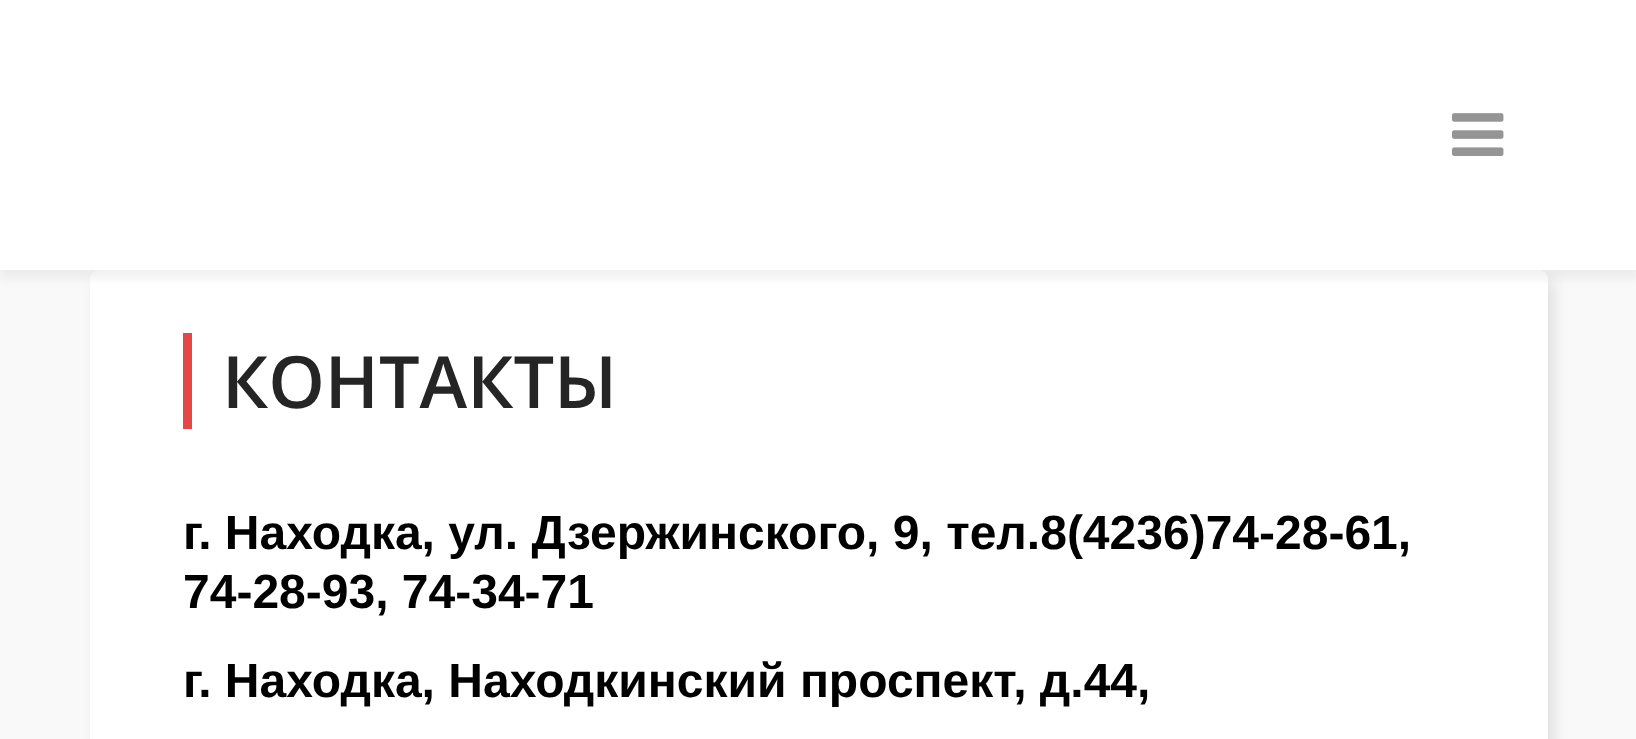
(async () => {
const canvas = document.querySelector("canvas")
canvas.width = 1636
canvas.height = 739
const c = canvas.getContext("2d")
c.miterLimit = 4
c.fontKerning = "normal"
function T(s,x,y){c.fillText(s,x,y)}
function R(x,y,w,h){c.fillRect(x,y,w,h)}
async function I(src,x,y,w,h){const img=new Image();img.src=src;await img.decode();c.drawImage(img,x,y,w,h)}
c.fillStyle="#f9f9f9"
R(0,0,1636,739)
c.fillStyle="#0000001a"
c.filter="blur(7.5px)"
c.beginPath()
c.roundRect(96,279,1458,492,9)
c.fill()
c.filter="none"
c.fillStyle="#fff"
c.beginPath()
c.roundRect(91.5,271.5,1455,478,7.5)
c.fill()
c.strokeStyle="#fff"
c.lineWidth=3
c.stroke()
c.fillStyle="#0000000d"
c.filter="blur(4.5px)"
c.beginPath()
c.rect(0,9,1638,270)
c.fill()
c.filter="none"
c.fillStyle="#fff"
R(0,0,1636,270)
await I("1.png",1452,113,52,43)
c.fillStyle="#e54747"
R(183,333,9,96)
c.font="600 72px Open Sans"
c.fillStyle="#252525"
T("КОНТАКТЫ",222,408)
c.font="bold 48px Liberation Sans"
c.fillStyle="#000"
T("г. Находка, ул. Дзержинского, 9, тел.8(4236)74-28-61,",183,549)
T("74-28-93, 74-34-71",183,608)
T("г. Находка, Находкинский проспект, д.44,",183,697)
})()
